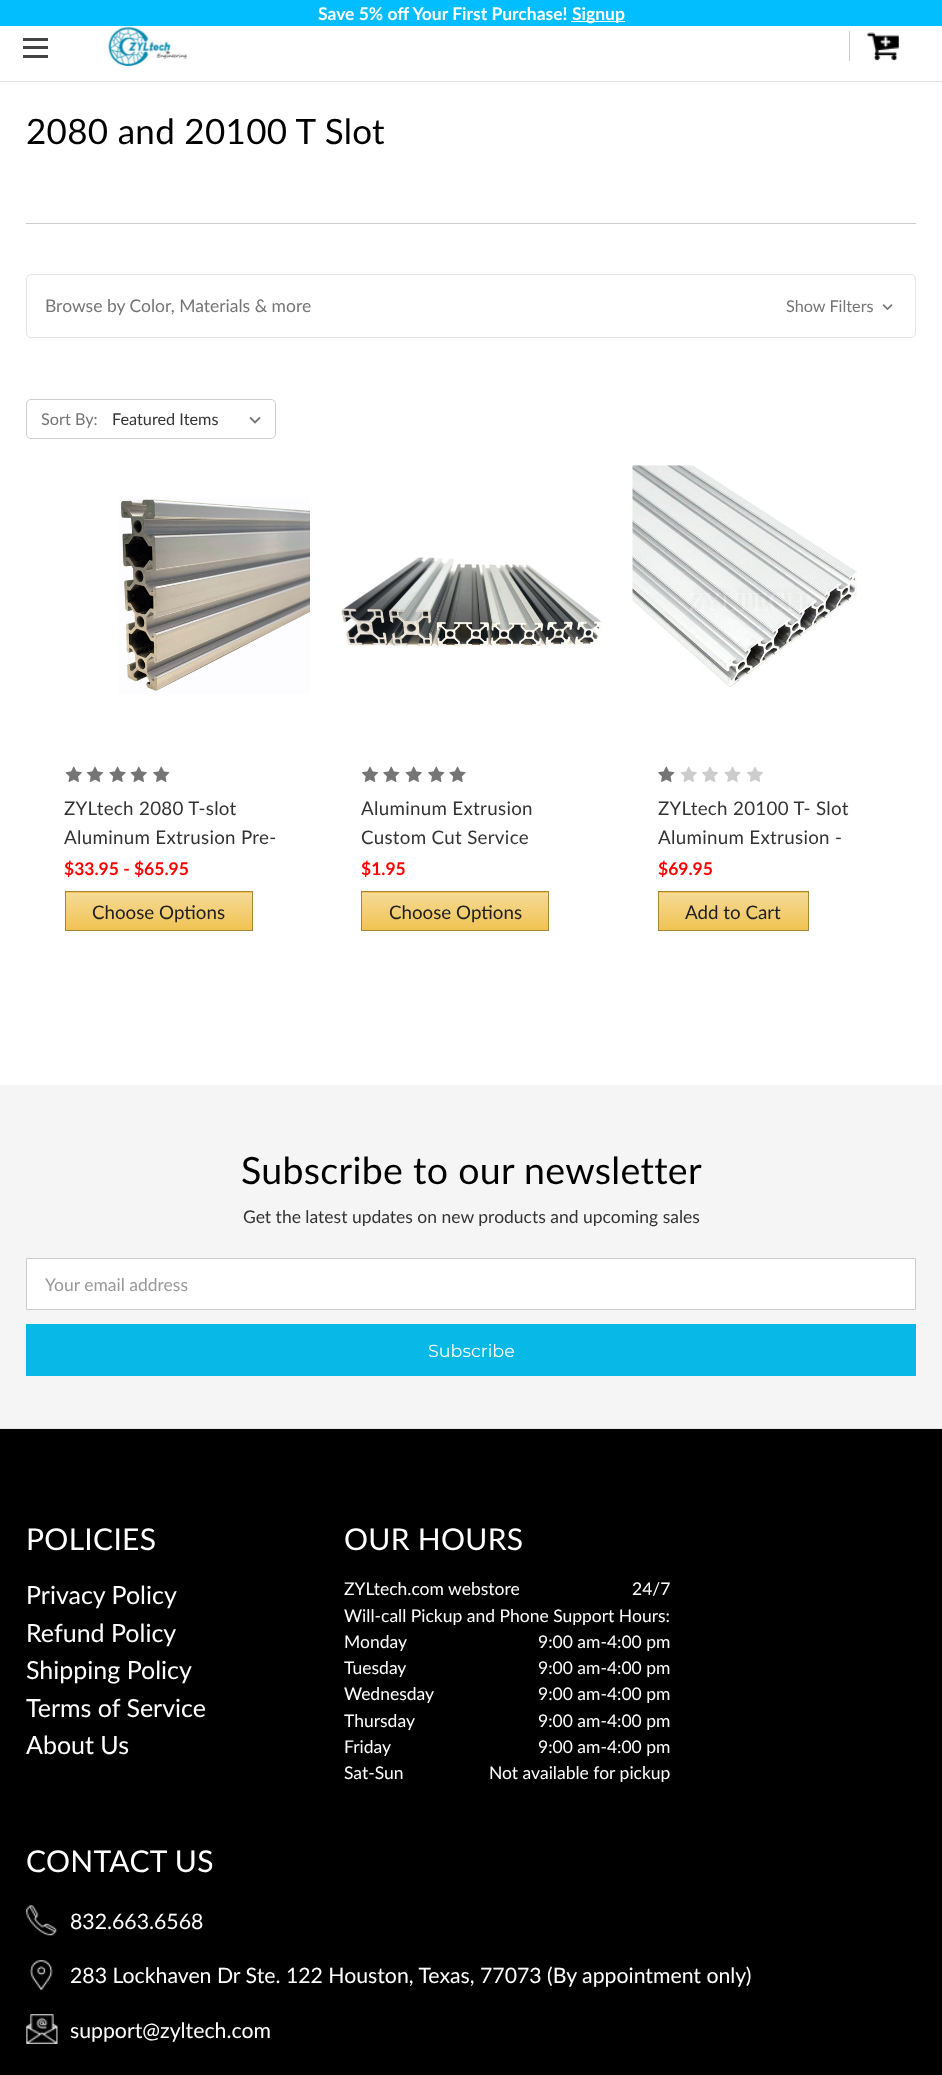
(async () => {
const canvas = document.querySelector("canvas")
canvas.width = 942
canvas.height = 2075
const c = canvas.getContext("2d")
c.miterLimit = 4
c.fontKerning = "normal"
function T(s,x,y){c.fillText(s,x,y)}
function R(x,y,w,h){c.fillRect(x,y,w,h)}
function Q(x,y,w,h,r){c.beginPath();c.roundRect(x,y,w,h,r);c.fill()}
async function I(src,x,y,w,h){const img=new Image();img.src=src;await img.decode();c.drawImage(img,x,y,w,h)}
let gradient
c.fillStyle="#fff"
R(0,0,942,2075)
c.fillStyle="#e5e5e5"
R(0,81,942,1)
c.fillStyle="#02befe"
R(0,0,942,26)
c.font="bold 17.5px Lato"
c.fillStyle="#fff"
T("Save 5% off Your First Purchase!",318,20)
R(571,21,54,1)
T("Signup",572,20)
c.fillStyle="#444"
R(23,46,25,3)
R(23,38,25,3)
R(23,55,25,3)
await I("1.png",104,25,85,41)
c.fillStyle="#ccc"
R(849,31,1,30)
await I("2.png",867,32,32,29)
c.letterSpacing="0.3px"
c.font="35px Lato"
c.fillStyle="#000"
T("2080 and 20100 T Slot",26,144)
c.fillStyle="#ccc"
R(26,223,890,1)
c.beginPath()
c.roundRect(26.5,274.5,889,63,4.5)
c.strokeStyle="#e5e5e5"
c.stroke()
c.letterSpacing="0px"
c.font="17.5px Lato"
c.fillStyle="#757575"
T("Browse by Color, Materials & more",45,312)
c.font="16.25px Lato"
T("Show Filters",786,312)
await I("3.png",882,304,11,7)
c.beginPath()
c.roundRect(26.5,399.5,249,39,4.5)
c.strokeStyle="#ccc"
c.stroke()
T("Sort By:",41,425)
c.save()
c.beginPath()
c.roundRect(28,400,247,38,4)
c.clip()
c.fillStyle="#fff"
Q(109,400,166,38,5)
c.restore()
await I("4.png",249,416,12,8)
c.fillStyle="#333"
T("Featured Items",112,425)
await I("5.png",118,497,192,197)
await I("6.png",65,766,17,16)
await I("7.png",86,766,18,16)
await I("8.png",109,766,17,16)
await I("6.png",130,766,17,16)
await I("9.png",153,766,17,16)
c.letterSpacing="0.3px"
c.font="18.75px Lato"
T("ZYLtech 2080 T-slot",64,815)
T("Aluminum Extrusion Pre-",64,844)
c.letterSpacing="0px"
c.font="bold 17.5px Lato"
c.fillStyle="#f00"
T("$33.95 - $65.95",64,875)
gradient = c.createLinearGradient(159,855,159,893)
gradient.addColorStop(0,"#f5da96")
gradient.addColorStop(1,"#f0c353")
c.fillStyle = gradient
R(65,892,188,1)
gradient = c.createLinearGradient(159,893,159,930)
gradient.addColorStop(0,"#f5da96")
gradient.addColorStop(1,"#f0c353")
c.fillStyle = gradient
R(66,893,186,37)
c.strokeStyle="#a88734"
c.strokeRect(65.5,891.5,187,39)
c.font="18.75px Lato"
c.fillStyle="#202020"
T("Choose Options",92,919)
await I("10.png",341,557,262,90)
await I("7.png",361,766,18,16)
await I("9.png",383,766,17,16)
await I("6.png",405,766,17,16)
await I("9.png",428,766,17,16)
await I("8.png",449,766,17,16)
c.letterSpacing="0.3px"
c.fillStyle="#333"
T("Aluminum Extrusion",361,815)
T("Custom Cut Service",361,844)
c.letterSpacing="0px"
c.font="bold 17.5px Lato"
c.fillStyle="#f00"
T("$1.95",361,875)
gradient = c.createLinearGradient(455,855,455,893)
gradient.addColorStop(0,"#f5da96")
gradient.addColorStop(1,"#f0c353")
c.fillStyle = gradient
R(361,892,188,1)
gradient = c.createLinearGradient(455,893,455,930)
gradient.addColorStop(0,"#f5da96")
gradient.addColorStop(1,"#f0c353")
c.fillStyle = gradient
R(362,893,186,37)
c.strokeRect(361.5,891.5,187,39)
c.font="18.75px Lato"
c.fillStyle="#202020"
T("Choose Options",389,919)
await I("11.png",632,465,225,222)
await I("9.png",658,766,17,16)
await I("12.png",680,766,17,16)
await I("13.png",702,766,16,16)
await I("14.png",724,766,17,16)
await I("13.png",747,766,16,16)
c.letterSpacing="0.3px"
c.fillStyle="#333"
T("ZYLtech 20100 T- Slot",658,815)
T("Aluminum Extrusion -",658,844)
c.letterSpacing="0px"
c.font="bold 17.5px Lato"
c.fillStyle="#f00"
T("$69.95",658,875)
gradient = c.createLinearGradient(733,855,733,893)
gradient.addColorStop(0,"#f5da96")
gradient.addColorStop(1,"#f0c353")
c.fillStyle = gradient
R(658,892,151,1)
gradient = c.createLinearGradient(733,893,733,930)
gradient.addColorStop(0,"#f5da96")
gradient.addColorStop(1,"#f0c353")
c.fillStyle = gradient
R(659,893,149,37)
c.strokeRect(658.5,891.5,150,39)
c.font="18.75px Lato"
c.fillStyle="#202020"
T("Add to Cart",685,919)
c.fillStyle="#f5f5f5"
R(0,1085,942,343)
c.letterSpacing="0.3px"
c.font="37.5px Lato"
c.fillStyle="#000"
T("Subscribe to our newsletter",241,1184)
c.letterSpacing="0px"
c.font="17.5px Lato"
c.fillStyle="#333"
T("Get the latest updates on new products and upcoming sales",243,1223)
c.fillStyle="#fff"
c.beginPath()
c.rect(26.5,1258.5,889,51)
c.fill()
c.strokeStyle="#ccc"
c.stroke()
c.fillStyle="#999"
T("Your email address",45,1291)
c.fillStyle="#08b8e7"
R(26,1324,890,52)
c.font="100 17.5px Montserrat"
c.fillStyle="#fff"
T("Subscribe",428,1357)
c.fillStyle="#000"
R(0,1429,942,646)
c.fillStyle="#e5e5e5"
R(0,1428,942,1)
c.letterSpacing="0.3px"
c.font="30px Lato"
c.fillStyle="#fff"
T("POLICIES",26,1550)
c.letterSpacing="0px"
c.font="25px Lato"
T("Privacy Policy",26,1604)
T("Refund Policy",26,1642)
T("Shipping Policy",26,1679)
T("Terms of Service",26,1717)
T("About Us",26,1754)
c.letterSpacing="0.3px"
c.font="30px Lato"
T("OUR HOURS",344,1550)
c.letterSpacing="0px"
c.font="17.5px Lato"
T("ZYLtech.com webstore",344,1595)
T("24/7",632,1595)
T("Will-call Pickup and Phone Support Hours:",344,1622)
T("Monday",344,1648)
T("9:00 am-4:00 pm",538,1648)
T("Tuesday",344,1674)
T("9:00 am-4:00 pm",538,1674)
T("Wednesday",344,1700)
T("9:00 am-4:00 pm",538,1700)
T("Thursday",344,1727)
T("9:00 am-4:00 pm",538,1727)
T("Friday",344,1753)
T("9:00 am-4:00 pm",538,1753)
T("Sat-Sun",344,1779)
T("Not available for pickup",489,1779)
c.letterSpacing="0.3px"
c.font="30px Lato"
T("CONTACT US",26,1872)
await I("15.png",26,1905,31,31)
c.letterSpacing="0px"
c.font="21.25px Lato"
T("832.663.6568",70,1929)
await I("16.png",30,1960,23,31)
T("283 Lockhaven Dr Ste. 122 Houston, Texas, 77073 (By appointment only)",70,1983)
await I("17.png",26,2014,32,30)
T("support@zyltech.com",70,2038)
})()
